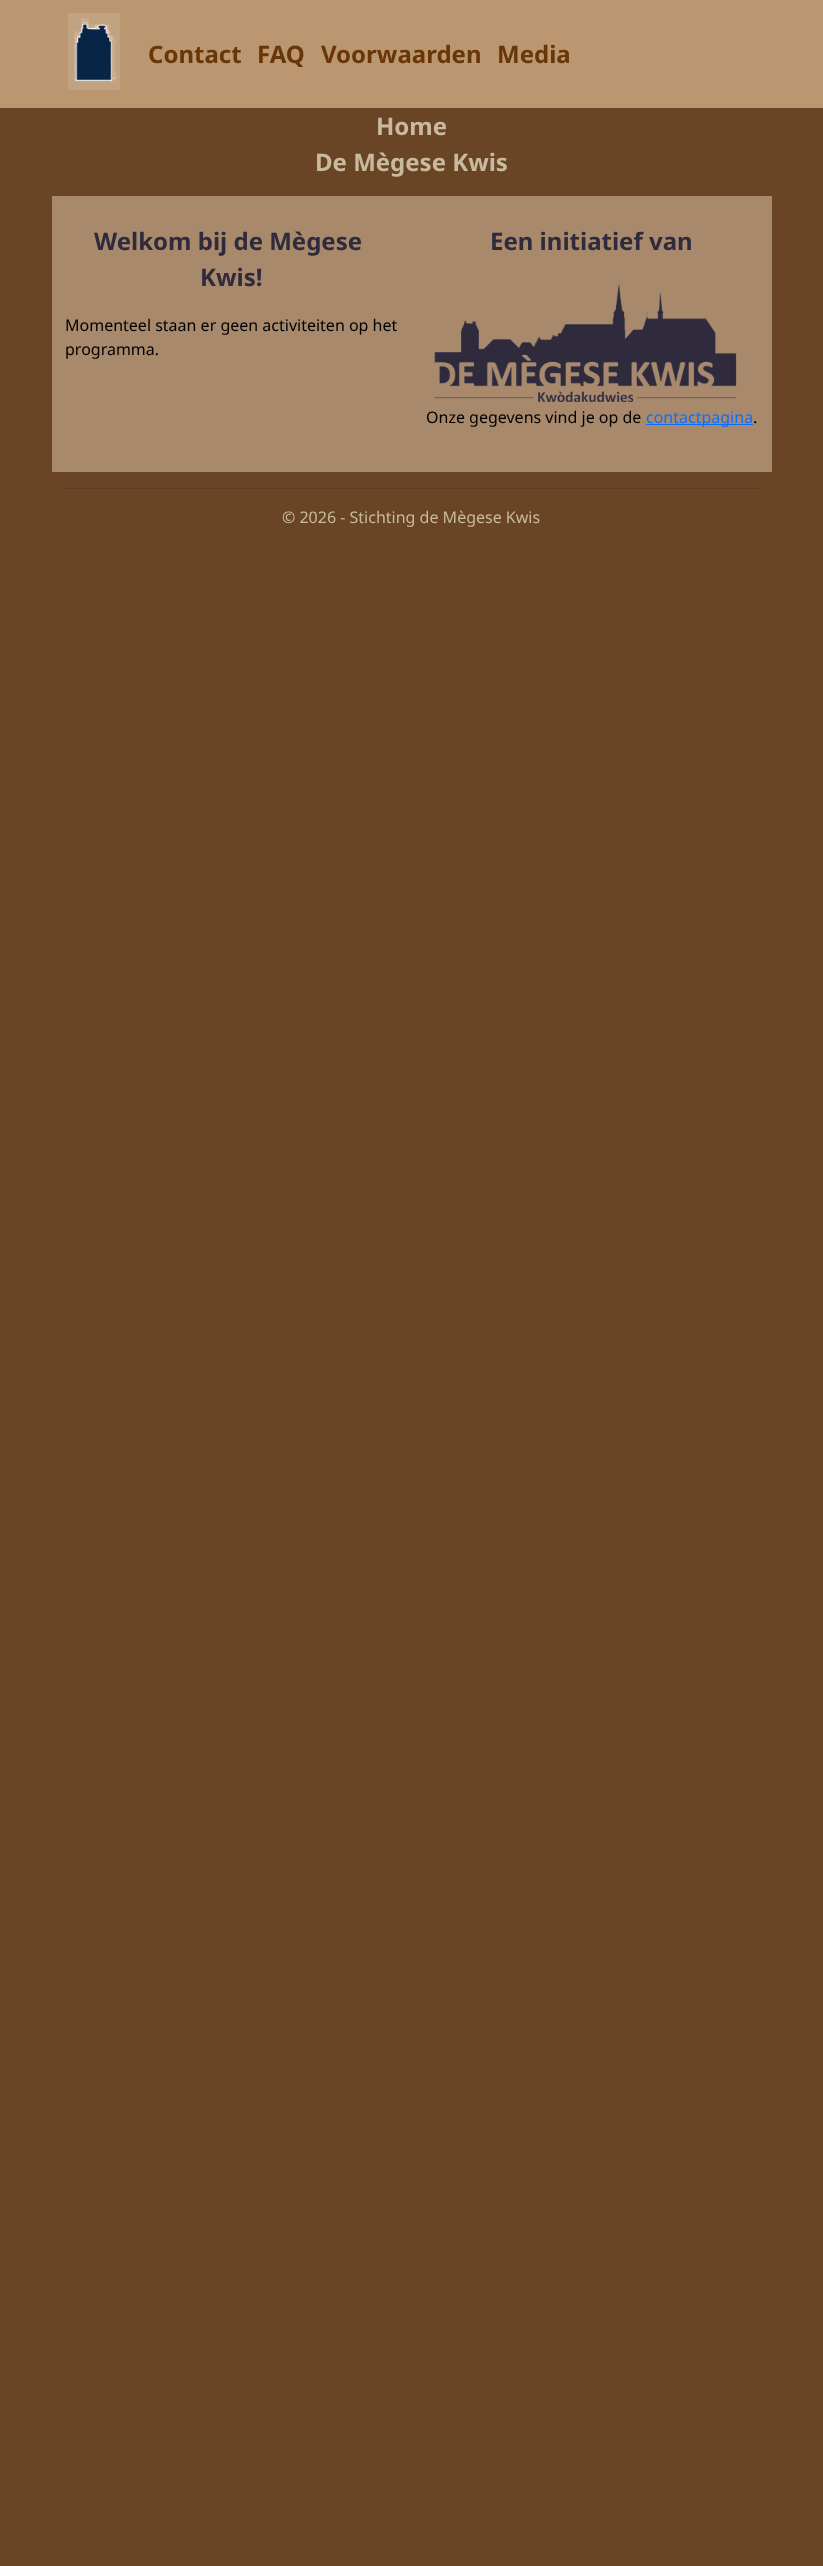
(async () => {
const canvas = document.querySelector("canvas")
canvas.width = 823
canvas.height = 2566
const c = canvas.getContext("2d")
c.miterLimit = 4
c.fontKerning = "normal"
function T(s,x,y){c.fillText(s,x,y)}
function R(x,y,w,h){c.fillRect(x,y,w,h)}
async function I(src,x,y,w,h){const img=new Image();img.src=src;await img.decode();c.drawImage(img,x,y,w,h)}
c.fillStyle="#694525"
R(0,0,823,2566)
c.fillStyle="#ba9771"
R(0,0,823,108)
await I("1.png",68,13,52,77)
c.font="bold 24px Noto Sans"
c.fillStyle="#693707"
T("Contact",148,63)
T("FAQ",257,63)
T("Voorwaarden",321,63)
T("Media",497,63)
c.fillStyle="#c9ba9f"
T("Home",376,135)
T("De Mègese Kwis",315,171)
c.fillStyle="#a8896c"
R(52,196,720,276)
c.fillStyle="#2f2b3d"
T("Welkom bij de Mègese",94,250)
T("Kwis!",200,286)
c.font="16px Noto Sans"
c.fillStyle="#000"
T("Momenteel staan er geen activiteiten op het",65,331)
T("programma.",65,355)
c.font="bold 24px Noto Sans"
c.fillStyle="#2f2b3d"
T("Een initiatief van",490,250)
await I("2.png",434,281,303,122)
c.font="16px Noto Sans"
c.fillStyle="#000"
T("Onze gegevens vind je op de",426,423)
c.fillStyle="#0d6efd"
R(646,424,107,1)
T("contactpagina",646,423)
c.fillStyle="#000"
T(".",753,423)
c.fillStyle="#573d26"
R(64,488,696,1)
c.fillStyle="#c9ba9f"
T("© 2026 - Stichting de Mègese Kwis",282,523)
})()
